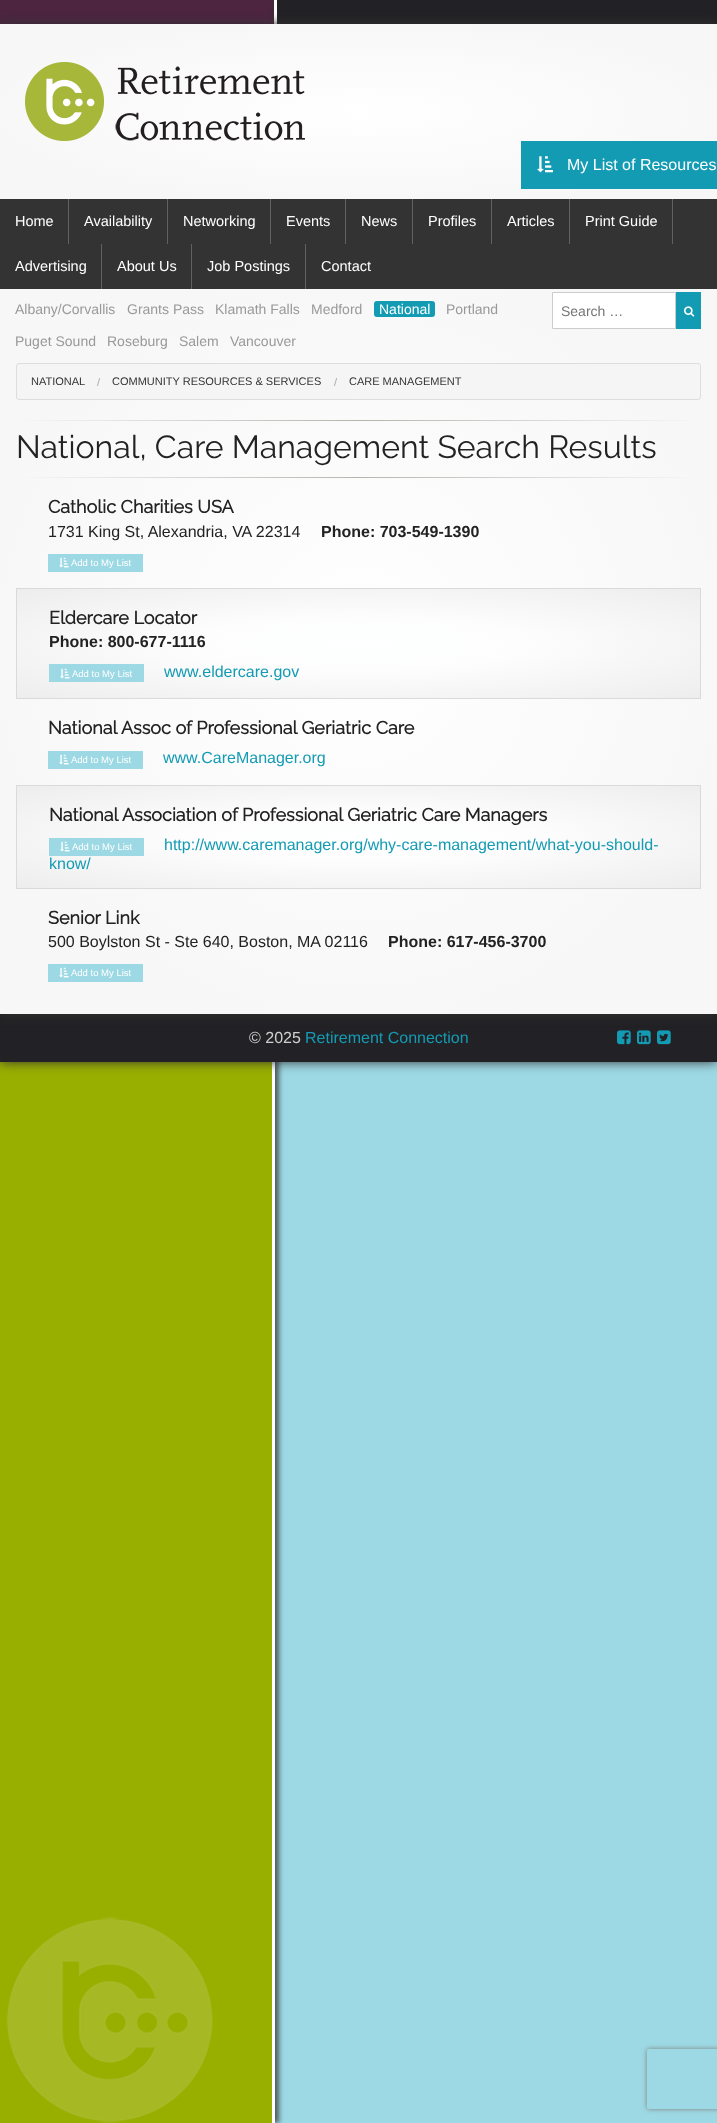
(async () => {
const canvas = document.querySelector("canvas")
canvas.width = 717
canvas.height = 2123
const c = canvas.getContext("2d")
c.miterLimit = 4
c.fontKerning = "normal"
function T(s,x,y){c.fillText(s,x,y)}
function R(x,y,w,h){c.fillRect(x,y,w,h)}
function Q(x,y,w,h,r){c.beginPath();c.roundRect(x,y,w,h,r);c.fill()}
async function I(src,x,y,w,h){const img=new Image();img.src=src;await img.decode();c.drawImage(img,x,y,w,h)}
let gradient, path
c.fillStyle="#9dd9e4"
R(0,0,717,2123)
c.fillStyle="#4d2541"
R(0,0,274,24)
c.fillStyle="#323232bf"
c.filter="blur(2.5px)"
c.beginPath()
c.rect(274,4,443,539)
c.fill()
c.filter="none"
c.fillStyle="#222226"
R(277,0,440,24)
c.fillStyle="#fff"
R(274,0,3,24)
c.fillStyle="#323232"
c.filter="blur(6px)"
c.beginPath()
c.rect(0,24,717,175)
c.fill()
c.filter="none"
gradient = c.createRadialGradient(359,457.94,0,359,457.94,507)
gradient.addColorStop(0,"#fff")
gradient.addColorStop(.78,"#f7f7f7")
gradient.addColorStop(1,"#f7f7f7")
c.fillStyle = gradient
c.beginPath()
c.rect(0,24,717,175)
c.save()
c.clip()
c.scale(1,124 / 507)
c.fillRect(0,0,717,8681)
c.restore()
await I("1.png",25,62,280,79)
c.fillStyle="#149bb4"
R(521,141,196,48)
await I("2.png",537,156,16,17)
c.font="16px Liberation Sans"
c.fillStyle="#fff"
T("My List of Resources",567,170)
c.fillStyle="#323232bf"
c.filter="blur(2.5px)"
c.beginPath()
c.rect(4,539,275,1584)
c.fill()
c.filter="none"
c.fillStyle="#99af00"
R(0,1062,272,1061)
c.fillStyle="#fff"
R(272,1062,3,1061)
c.fillStyle="#323232"
c.filter="blur(6px)"
c.beginPath()
c.rect(0,1014,717,48)
c.fill()
c.filter="none"
c.fillStyle="#222226"
R(0,1014,717,48)
await I("6.png",617,1030,14,15)
await I("7.png",637,1030,14,15)
await I("8.png",657,1030,14,15)
c.fillStyle="#323232"
c.filter="blur(6px)"
c.beginPath()
c.rect(0,289,717,725)
c.fill()
c.filter="none"
c.fillStyle="#333"
R(0,199,717,90)
c.font="14.5px Liberation Sans"
c.fillStyle="#fff"
T("Home",15,226)
c.fillStyle="#616161"
R(68,199,1,45)
c.fillStyle="#fff"
T("Availability",84,226)
c.fillStyle="#616161"
R(167,199,1,45)
c.fillStyle="#fff"
T("Networking",183,226)
c.fillStyle="#616161"
R(270,199,1,45)
c.fillStyle="#fff"
T("Events",286,226)
c.fillStyle="#616161"
R(345,199,1,45)
c.fillStyle="#fff"
T("News",361,226)
c.fillStyle="#616161"
R(412,199,1,45)
c.fillStyle="#fff"
T("Profiles",428,226)
c.fillStyle="#616161"
R(491,199,1,45)
c.fillStyle="#fff"
T("Articles",507,226)
c.fillStyle="#616161"
R(569,199,1,45)
c.fillStyle="#fff"
T("Print Guide",585,226)
c.fillStyle="#616161"
R(672,199,1,45)
c.fillStyle="#fff"
T("Advertising",15,271)
c.fillStyle="#616161"
R(101,244,1,45)
c.fillStyle="#fff"
T("About Us",117,271)
c.fillStyle="#616161"
R(191,244,1,45)
c.fillStyle="#fff"
T("Job Postings",207,271)
c.fillStyle="#616161"
R(305,244,1,45)
c.fillStyle="#fff"
T("Contact",321,271)
gradient = c.createRadialGradient(359,644.37,0,359,644.37,507)
gradient.addColorStop(0,"#fff")
gradient.addColorStop(.78,"#f7f7f7")
gradient.addColorStop(1,"#f7f7f7")
c.fillStyle = gradient
c.beginPath()
c.rect(0,289,717,725)
c.save()
c.clip()
c.scale(1,513 / 507)
c.fillRect(0,0,717,2099)
c.restore()
c.font="14px Liberation Sans"
c.fillStyle="#999"
T("Albany/Corvallis",15,314)
T("Grants Pass",127,314)
T("Klamath Falls",215,314)
T("Medford",311,314)
c.fillStyle="#149bb4"
Q(374,301,61,16,3)
c.fillStyle="#fff"
T("National",379,314)
c.fillStyle="#999"
T("Portland",446,314)
T("Puget Sound",15,346)
T("Roseburg",107,346)
T("Salem",179,346)
T("Vancouver",230,346)
c.fillStyle="#fff"
c.beginPath()
c.rect(552.5,292.5,123,36)
c.fill()
c.strokeStyle="#ccc"
c.stroke()
c.fillStyle="#757575"
T("Search …",561,316)
c.fillStyle="#149bb4"
R(676,292,25,37)
await I("3.png",684,306,11,11)
c.fillStyle="#f5f5f5"
c.beginPath()
c.roundRect(16.5,363.5,684,36,2.5)
c.fill()
c.strokeStyle="#ddd"
c.stroke()
c.font="11px Liberation Sans"
c.fillStyle="#333"
T("NATIONAL",31,385)
c.fillStyle="#aaa"
T("/",97,386)
c.fillStyle="#333"
T("COMMUNITY RESOURCES & SERVICES",112,385)
c.fillStyle="#aaa"
T("/",334,386)
c.fillStyle="#333"
T("CARE MANAGEMENT",349,385)
gradient = c.createLinearGradient(16,421,701,421)
gradient.addColorStop(0,"#9f9c9300")
gradient.addColorStop(.5,"#9f9c93bf")
gradient.addColorStop(1,"#9f9c9300")
c.fillStyle = gradient
R(26,420,665,1)
c.font="100 32px Raleway"
c.fillStyle="#222"
T("National, Care Management Search Results",16,458)
gradient = c.createLinearGradient(16,478,701,478)
gradient.addColorStop(0,"#9f9c9300")
gradient.addColorStop(.5,"#9f9c93bf")
gradient.addColorStop(1,"#9f9c9300")
c.fillStyle = gradient
R(26,477,665,1)
c.font="bold 18px Raleway"
c.fillStyle="#222"
T("Catholic Charities USA",48,513)
c.font="16px Liberation Sans"
T("1731 King St, Alexandria, VA 22314",48,537)
c.font="bold 16px Liberation Sans"
T("Phone: 703-549-1390",321,537)
c.fillStyle="#9dd9e4"
R(48,554,95,18)
await I("4.png",59,557,10,11)
c.font="9.5px Liberation Sans"
c.fillStyle="#fff"
T("Add to My List",71,566)
gradient = c.createRadialGradient(359,4039.64,0,359,4039.64,483)
gradient.addColorStop(0,"#feffff")
gradient.addColorStop(.35,"#fdfdfd")
gradient.addColorStop(1,"#ededed")
c.fillStyle = gradient
c.beginPath()
c.rect(17,589,683,109)
c.save()
c.clip()
c.scale(1,77 / 483)
c.fillRect(0,0,717,13317)
c.restore()
c.strokeStyle="#dadada"
c.strokeRect(16.5,588.5,684,110)
c.font="bold 18px Raleway"
c.fillStyle="#222"
T("Eldercare Locator",49,624)
c.font="bold 16px Liberation Sans"
T("Phone: 800-677-1116",49,647)
c.fillStyle="#9dd9e4"
R(49,664,95,18)
await I("4.png",60,668,10,11)
c.font="9.5px Liberation Sans"
c.fillStyle="#fff"
T("Add to My List",72,677)
c.font="16px Liberation Sans"
c.fillStyle="#149bb4"
T("www.eldercare.gov",164,677)
c.font="bold 18px Raleway"
c.fillStyle="#222"
T("National Assoc of Professional Geriatric Care",48,734)
c.fillStyle="#9dd9e4"
R(48,751,95,18)
await I("4.png",59,754,10,11)
c.font="9.5px Liberation Sans"
c.fillStyle="#fff"
T("Add to My List",71,763)
c.font="16px Liberation Sans"
c.fillStyle="#149bb4"
T("www.CareManager.org",163,763)
gradient = c.createRadialGradient(359,5614.88,0,359,5614.88,483)
gradient.addColorStop(0,"#feffff")
gradient.addColorStop(.35,"#fdfdfd")
gradient.addColorStop(1,"#ededed")
c.fillStyle = gradient
c.beginPath()
c.rect(17,786,683,102)
c.save()
c.clip()
c.scale(1,72 / 483)
c.fillRect(0,0,717,14242)
c.restore()
c.strokeRect(16.5,785.5,684,103)
c.font="bold 18px Raleway"
c.fillStyle="#222"
T("National Association of Professional Geriatric Care Managers",49,821)
c.fillStyle="#9dd9e4"
R(49,838,95,18)
await I("4.png",60,841,10,11)
c.font="9.5px Liberation Sans"
c.fillStyle="#fff"
T("Add to My List",72,850)
c.font="16px Liberation Sans"
c.fillStyle="#149bb4"
T("http://www.caremanager.org/why-care-management/what-you-should-",164,850)
T("know/",49,869)
c.font="bold 18px Raleway"
c.fillStyle="#222"
T("Senior Link",48,924)
c.font="16px Liberation Sans"
T("500 Boylston St - Ste 640, Boston, MA 02116",48,947)
c.font="bold 16px Liberation Sans"
T("Phone: 617-456-3700",388,947)
c.fillStyle="#9dd9e4"
R(48,964,95,18)
await I("4.png",59,967,10,11)
c.font="9.5px Liberation Sans"
c.fillStyle="#fff"
T("Add to My List",71,976)
await I("5.png",6,1917,207,206)
c.font="16px Liberation Sans"
c.fillStyle="#cfcfcf"
T("© 2025",249,1043)
c.fillStyle="#149bb4"
T("Retirement Connection",305,1043)
c.save()
path = new Path2D("M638 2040h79v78h-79zm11 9h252c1 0 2 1 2 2v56c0 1-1 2-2 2h-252c-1 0-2-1-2-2v-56c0-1 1-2 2-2z")
c.clip(path,"evenodd")
c.fillStyle="#808080"
c.filter="blur(2.5px)"
c.beginPath()
c.roundRect(647,2049,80,60,2)
c.fill()
c.filter="none"
c.restore()
})()
